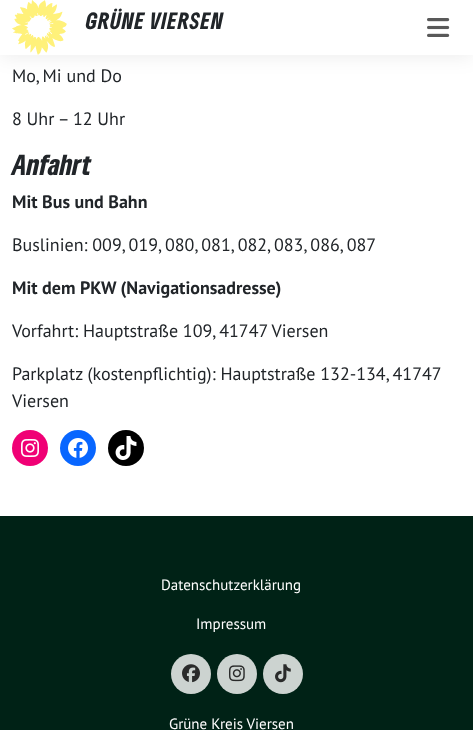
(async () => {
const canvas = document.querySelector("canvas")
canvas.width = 473
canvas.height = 730
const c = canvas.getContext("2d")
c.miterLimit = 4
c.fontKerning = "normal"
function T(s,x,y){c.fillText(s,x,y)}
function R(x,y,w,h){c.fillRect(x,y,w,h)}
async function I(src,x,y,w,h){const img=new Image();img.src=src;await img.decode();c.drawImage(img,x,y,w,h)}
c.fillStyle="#fff"
R(0,0,473,730)
c.fillStyle="#00000014"
c.filter="blur(10px)"
c.beginPath()
c.rect(0,1,473,55)
c.fill()
c.filter="none"
c.fillStyle="#fff"
R(0,0,473,55)
await I("1.png",12,0,55,55)
c.letterSpacing="1px"
c.font="900 22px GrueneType"
c.fillStyle="#212529"
T("GRÜNE VIERSEN",86,29)
await I("2.png",427,18,23,19)
c.letterSpacing="0px"
c.font="18px PT Sans"
T("Mo, Mi und Do",12,82)
T("8 Uhr – 12 Uhr",12,125)
c.font="900 27px GrueneType"
T("Anfahrt",12,175)
c.font="bold 18px PT Sans"
T("Mit Bus und Bahn",12,208)
c.font="18px PT Sans"
T("Buslinien: 009, 019, 080, 081, 082, 083, 086, 087",12,251)
c.font="bold 18px PT Sans"
T("Mit dem PKW (Navigationsadresse)",12,294)
c.font="18px PT Sans"
T("Vorfahrt: Hauptstraße 109, 41747 Viersen",12,337)
T("Parkplatz (kostenpflichtig): Hauptstraße 132-134, 41747",12,380)
T("Viersen",12,407)
c.fillStyle="#f00075"
c.beginPath()
c.arc(30,448,18,0,7)
c.fill()
await I("3.png",21,439,18,18)
c.fillStyle="#0866ff"
c.beginPath()
c.arc(78,448,18,0,7)
c.fill()
await I("4.png",68,438,20,20)
c.fillStyle="#000"
c.beginPath()
c.arc(126,448,18,0,7)
c.fill()
await I("5.png",115,436,22,24)
c.fillStyle="#002216"
R(0,516,473,214)
c.font="15px PT Sans"
c.fillStyle="#fff"
T("Datenschutzerklärung",161,590)
T("Impressum",196,629)
c.fillStyle="#ccd3d0"
c.beginPath()
c.arc(191,674,20,0,7)
c.fill()
await I("6.png",182,664,18,19)
c.beginPath()
c.arc(237,674,20,0,7)
c.fill()
await I("7.png",229,665,16,17)
c.beginPath()
c.arc(283,674,20,0,7)
c.fill()
await I("8.png",275,664,16,19)
c.fillStyle="#fff"
T("Grüne Kreis Viersen",169,729)
})()
